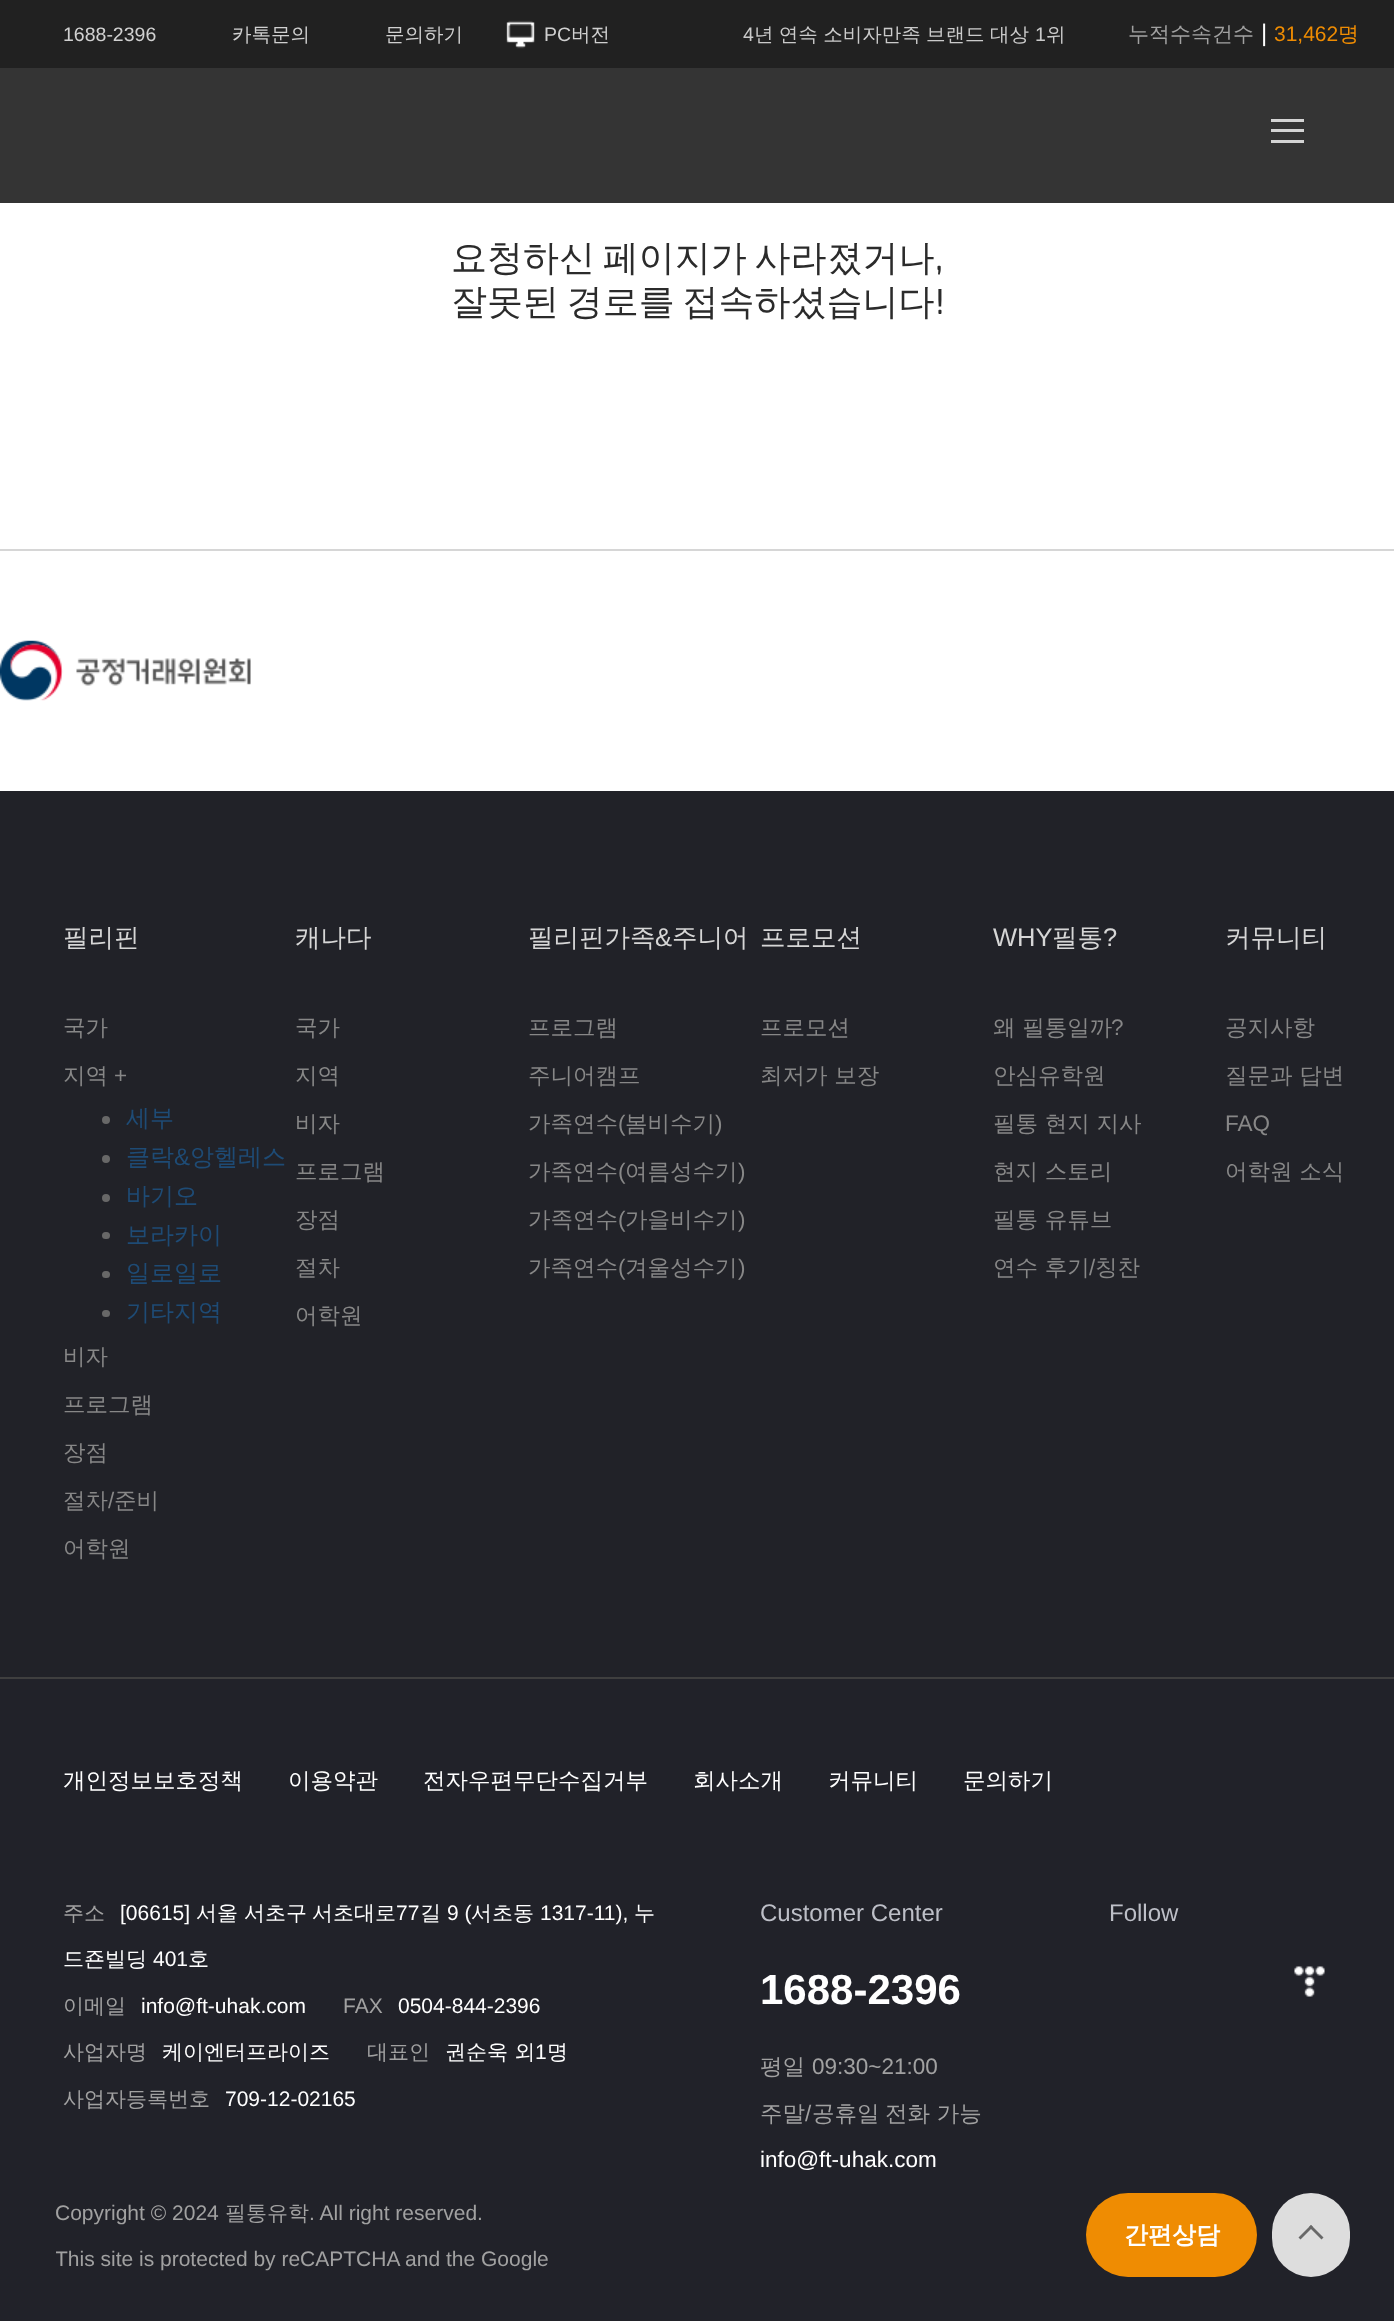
(async () => {
const canvas = document.querySelector("canvas")
canvas.width = 1394
canvas.height = 2321
const c = canvas.getContext("2d")
c.miterLimit = 4
c.fontKerning = "normal"
function T(s,x,y){c.fillText(s,x,y)}
function R(x,y,w,h){c.fillRect(x,y,w,h)}
function Q(x,y,w,h,r){c.beginPath();c.roundRect(x,y,w,h,r);c.fill()}
async function I(src,x,y,w,h){const img=new Image();img.src=src;await img.decode();c.drawImage(img,x,y,w,h)}
let path
c.fillStyle="#fff"
R(0,0,1394,2321)
c.fillStyle="#212121"
R(0,0,1394,68)
c.font="19.5px Liberation Sans"
c.fillStyle="#d0d0d0"
T("1688-2396",63,41)
c.font="500 19.5px WenQuanYi Zen Hei"
T("카톡문의",232,41)
T("문의하기",385,41)
await I("1.png",506,20,29,29)
c.font="19.5px Liberation Sans"
T("PC",544,41)
c.font="500 19.5px WenQuanYi Zen Hei"
T("버전",571,41)
c.font="19.5px Liberation Sans"
c.fillStyle="#cacaca"
T("4",743,41)
c.wordSpacing="-0.5px"
c.font="500 19.5px WenQuanYi Zen Hei"
T("년 연속 소비자만족 브랜드 대상",754,41)
c.wordSpacing="0px"
c.font="19.5px Liberation Sans"
T("1",1035,41)
c.font="500 19.5px WenQuanYi Zen Hei"
T("위",1046,41)
c.font="500 21px WenQuanYi Zen Hei"
c.fillStyle="#a1a1a1"
T("누적수속건수",1128,41)
c.font="24px Liberation Sans"
c.fillStyle="#fff"
T("|",1261,41)
c.font="21px Liberation Sans"
c.fillStyle="#ef8c02"
T("31,462",1274,41)
c.font="500 21px WenQuanYi Zen Hei"
T("명",1338,41)
c.fillStyle="#343434"
R(0,68,1394,135)
c.fillStyle="#d4d4d4"
R(1271,129,33,3)
R(1271,119,33,3)
R(1271,140,33,3)
c.wordSpacing="-3px"
c.font="500 36px WenQuanYi Zen Hei"
c.fillStyle="#2b2b2b"
T("요청하신 페이지가 사라졌거나",451,270)
c.wordSpacing="0px"
c.font="36px 'Exo 2'"
T(",",935,270)
c.wordSpacing="-3px"
c.font="500 36px WenQuanYi Zen Hei"
T("잘못된 경로를 접속하셨습니다",451,314)
c.wordSpacing="0px"
c.font="36px 'Exo 2'"
T("!",935,314)
c.fillStyle="#d6d6d6"
R(0,549,1394,2)
await I("2.png",0,640,251,61)
c.fillStyle="#212228"
R(0,791,1394,886)
c.font="500 25.5px WenQuanYi Zen Hei"
c.fillStyle="#d6d6d6"
T("필리핀",63,946)
c.font="500 22.5px WenQuanYi Zen Hei"
c.fillStyle="#878787"
T("국가",63,1035)
T("지역",63,1083)
c.font="22.5px Liberation Sans"
T("+",114,1083)
c.fillStyle="#686868"
c.beginPath()
c.arc(106,1120,4,0,7)
c.fill()
c.font="500 24px WenQuanYi Zen Hei"
c.fillStyle="#1e4b75"
T("세부",126,1126)
c.fillStyle="#686868"
c.beginPath()
c.arc(106,1159,4,0,7)
c.fill()
c.fillStyle="#1e4b75"
T("클락",126,1165)
c.font="24px Liberation Sans"
T("&",174,1165)
c.font="500 24px WenQuanYi Zen Hei"
T("앙헬레스",190,1165)
c.fillStyle="#686868"
c.beginPath()
c.arc(106,1198,4,0,7)
c.fill()
c.fillStyle="#1e4b75"
T("바기오",126,1204)
c.fillStyle="#686868"
Q(102,1232,8,7,3.5)
c.fillStyle="#1e4b75"
T("보라카이",126,1243)
c.fillStyle="#686868"
Q(102,1271,8,7,3.5)
c.fillStyle="#1e4b75"
T("일로일로",126,1281)
c.fillStyle="#686868"
Q(102,1310,8,7,3.5)
c.fillStyle="#1e4b75"
T("기타지역",126,1320)
c.font="500 22.5px WenQuanYi Zen Hei"
c.fillStyle="#878787"
T("비자",63,1364)
T("프로그램",63,1412)
T("장점",63,1460)
T("절차",63,1508)
c.font="22.5px Liberation Sans"
T("/",108,1508)
c.font="500 22.5px WenQuanYi Zen Hei"
T("준비",114,1508)
T("어학원",63,1556)
c.font="500 25.5px WenQuanYi Zen Hei"
c.fillStyle="#d6d6d6"
T("캐나다",295,946)
c.font="500 22.5px WenQuanYi Zen Hei"
c.fillStyle="#878787"
T("국가",295,1035)
T("지역",295,1083)
T("비자",295,1131)
T("프로그램",295,1179)
T("장점",295,1227)
T("절차",295,1275)
T("어학원",295,1323)
c.font="500 25.5px WenQuanYi Zen Hei"
c.fillStyle="#d6d6d6"
T("필리핀가족",528,946)
c.font="25.5px Liberation Sans"
T("&",655,946)
c.font="500 25.5px WenQuanYi Zen Hei"
T("주니어",672,946)
c.font="500 22.5px WenQuanYi Zen Hei"
c.fillStyle="#878787"
T("프로그램",528,1035)
T("주니어캠프",528,1083)
T("가족연수",528,1131)
c.font="22.5px Liberation Sans"
T("(",618,1131)
c.font="500 22.5px WenQuanYi Zen Hei"
T("봄비수기",625,1131)
c.font="22.5px Liberation Sans"
T(")",715,1131)
c.font="500 22.5px WenQuanYi Zen Hei"
T("가족연수",528,1179)
c.font="22.5px Liberation Sans"
T("(",618,1179)
c.font="500 22.5px WenQuanYi Zen Hei"
T("여름성수기",625,1179)
c.font="22.5px Liberation Sans"
T(")",738,1179)
c.font="500 22.5px WenQuanYi Zen Hei"
T("가족연수",528,1227)
c.font="22.5px Liberation Sans"
T("(",618,1227)
c.font="500 22.5px WenQuanYi Zen Hei"
T("가을비수기",625,1227)
c.font="22.5px Liberation Sans"
T(")",738,1227)
c.font="500 22.5px WenQuanYi Zen Hei"
T("가족연수",528,1275)
c.font="22.5px Liberation Sans"
T("(",618,1275)
c.font="500 22.5px WenQuanYi Zen Hei"
T("겨울성수기",625,1275)
c.font="22.5px Liberation Sans"
T(")",738,1275)
c.font="500 25.5px WenQuanYi Zen Hei"
c.fillStyle="#d6d6d6"
T("프로모션",760,946)
c.font="500 22.5px WenQuanYi Zen Hei"
c.fillStyle="#878787"
T("프로모션",760,1035)
T("최저가 보장",760,1083)
c.font="25.5px Liberation Sans"
c.fillStyle="#d6d6d6"
T("WHY",993,946)
c.font="500 25.5px WenQuanYi Zen Hei"
T("필통",1052,946)
c.font="25.5px Liberation Sans"
T("?",1103,946)
c.font="500 22.5px WenQuanYi Zen Hei"
c.fillStyle="#878787"
T("왜 필통일까",993,1035)
c.font="22.5px Liberation Sans"
T("?",1111,1035)
c.font="500 22.5px WenQuanYi Zen Hei"
T("안심유학원",993,1083)
T("필통 현지 지사",993,1131)
T("현지 스토리",993,1179)
T("필통 유튜브",993,1227)
T("연수 후기",993,1275)
c.font="22.5px Liberation Sans"
T("/",1089,1275)
c.font="500 22.5px WenQuanYi Zen Hei"
T("칭찬",1095,1275)
c.font="500 25.5px WenQuanYi Zen Hei"
c.fillStyle="#d6d6d6"
T("커뮤니티",1225,946)
c.font="500 22.5px WenQuanYi Zen Hei"
c.fillStyle="#878787"
T("공지사항",1225,1035)
T("질문과 답변",1225,1083)
c.font="22.5px Liberation Sans"
T("FAQ",1225,1131)
c.font="500 22.5px WenQuanYi Zen Hei"
T("어학원 소식",1225,1179)
c.fillStyle="#212229"
R(0,1679,1394,642)
c.fillStyle="#3f3f3f"
R(0,1677,1394,2)
c.fillStyle="#fff"
T("개인정보보호정책",63,1788)
T("이용약관",288,1788)
T("전자우편무단수집거부",423,1788)
T("회사소개",693,1788)
T("커뮤니티",828,1788)
T("문의하기",963,1788)
c.font="500 21px WenQuanYi Zen Hei"
c.fillStyle="#a1a1a1"
T("주소",63,1920)
c.font="21px Liberation Sans"
c.fillStyle="#fff"
T("[06615]",120,1920)
c.font="500 21px WenQuanYi Zen Hei"
T("서울",196,1920)
T("서초구",244,1920)
T("서초대로",312,1920)
c.font="21px Liberation Sans"
T("77",396,1920)
c.font="500 21px WenQuanYi Zen Hei"
T("길",420,1920)
c.font="21px Liberation Sans"
T("9 (",447,1920)
c.font="500 21px WenQuanYi Zen Hei"
T("서초동",471,1920)
c.font="21px Liberation Sans"
T("1317-11),",540,1920)
c.font="500 21px WenQuanYi Zen Hei"
T("누",634,1920)
T("드죤빌딩",63,1966)
c.font="21px Liberation Sans"
T("401",153,1966)
c.font="500 21px WenQuanYi Zen Hei"
T("호",188,1966)
c.fillStyle="#a1a1a1"
T("이메일",63,2013)
c.font="21px Liberation Sans"
c.fillStyle="#fff"
T("info@ft-uhak.com",141,2013)
c.fillStyle="#a1a1a1"
T("FAX",343,2013)
c.fillStyle="#fff"
T("0504-844-2396",398,2013)
c.font="500 21px WenQuanYi Zen Hei"
c.fillStyle="#a1a1a1"
T("사업자명",63,2059)
c.fillStyle="#fff"
T("케이엔터프라이즈",162,2059)
c.fillStyle="#a1a1a1"
T("대표인",367,2059)
c.fillStyle="#fff"
T("권순욱 외",445,2059)
c.font="21px Liberation Sans"
T("1",535,2059)
c.font="500 21px WenQuanYi Zen Hei"
T("명",547,2059)
c.fillStyle="#a1a1a1"
T("사업자등록번호",63,2106)
c.font="21px Liberation Sans"
c.fillStyle="#fff"
T("709-12-02165",225,2106)
c.fillStyle="#a1a1a1"
T("Copyright © 2024",55,2220)
c.font="500 21px WenQuanYi Zen Hei"
T("필통유학",225,2220)
c.font="21px Liberation Sans"
T(". All right reserved.",309,2220)
c.save()
c.beginPath()
c.rect(56,2190,493,93)
c.clip()
T("This site is protected by reCAPTCHA and the Google",55,2266)
c.restore()
c.font="24px Liberation Sans"
c.fillStyle="#bdbfc7"
T("Customer Center",760,1921)
c.font="bold 42px Liberation Sans"
c.fillStyle="#fff"
T("1688-2396",760,2004)
c.font="500 22.5px WenQuanYi Zen Hei"
c.fillStyle="#a1a1a1"
T("평일",760,2074)
c.font="22.5px Liberation Sans"
T("09:30~21:00",812,2074)
c.font="500 22.5px WenQuanYi Zen Hei"
T("주말",760,2121)
c.font="22.5px Liberation Sans"
T("/",805,2121)
c.font="500 22.5px WenQuanYi Zen Hei"
T("공휴일",812,2121)
T("전화 가능",885,2121)
c.font="22.5px Liberation Sans"
c.fillStyle="#fff"
T("info@ft-uhak.com",760,2167)
c.font="24px Liberation Sans"
c.fillStyle="#bdbfc7"
T("Follow",1109,1921)
await I("3.png",1294,1966,31,31)
c.fillStyle="#ef8c02"
Q(1086,2193,171,84,42)
c.font="bold 24px WenQuanYi Zen Hei"
c.fillStyle="#fff"
T("간편상담",1124,2243)
c.fillStyle="#ddd"
Q(1272,2193,78,84,39)
c.fillStyle="#686868"
path = new Path2D("M1311 2225l12.5 12.5l-2 2l-12.5-12.5z")
c.fill(path)
path = new Path2D("M1311 2225l2 2l-12.5 12.5l-2-2z")
c.fill(path)
})()
